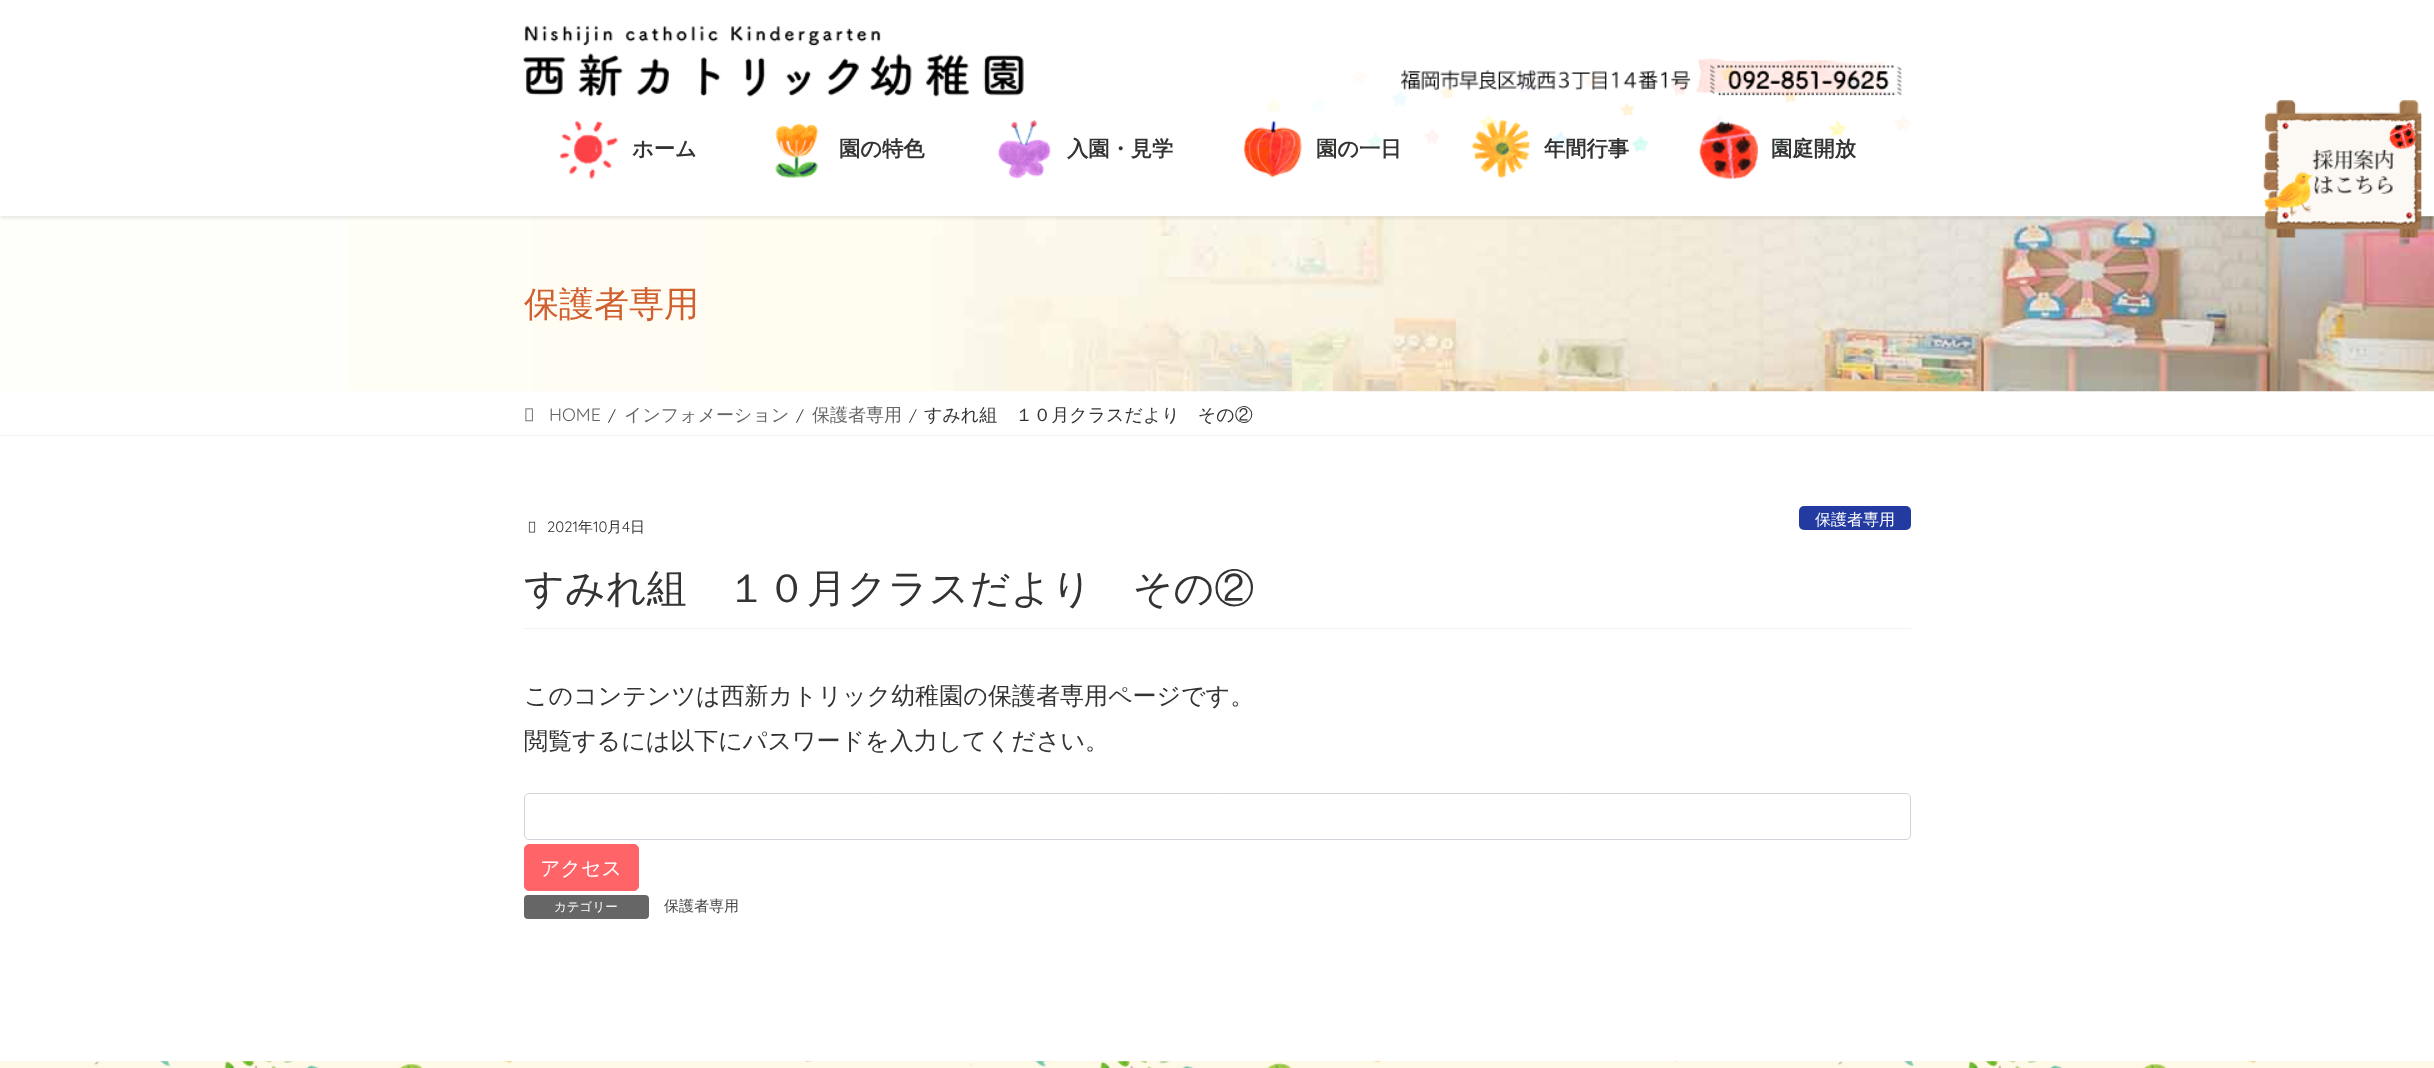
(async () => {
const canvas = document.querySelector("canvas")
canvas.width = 2434
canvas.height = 1068
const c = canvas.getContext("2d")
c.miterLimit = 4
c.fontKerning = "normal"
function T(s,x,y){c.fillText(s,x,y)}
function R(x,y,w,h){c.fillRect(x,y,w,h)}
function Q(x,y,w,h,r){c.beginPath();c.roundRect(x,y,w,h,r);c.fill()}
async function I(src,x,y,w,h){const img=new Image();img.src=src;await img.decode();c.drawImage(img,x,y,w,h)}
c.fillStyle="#fff"
R(0,0,2434,1068)
await I("10.png",0,216,2434,176)
c.save()
c.beginPath()
c.rect(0,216,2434,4)
c.clip()
c.fillStyle="#0000001a"
c.filter="blur(2px)"
c.beginPath()
c.rect(0,1,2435,217)
c.fill()
c.filter="none"
c.restore()
await I("1.png",1266,58,645,97)
await I("2.png",523,26,501,71)
await I("3.png",560,121,58,58)
c.font="bold 21.25px WenQuanYi Zen Hei"
c.fillStyle="#333"
T("ホーム",632,156)
await I("4.png",775,123,43,55)
T("園の特色",839,156)
await I("5.png",997,120,54,59)
T("入園・見学",1067,156)
await I("6.png",1243,121,59,57)
T("園の一日",1316,156)
await I("7.png",1471,120,60,59)
T("年間行事",1544,156)
await I("8.png",1699,121,60,58)
T("園庭開放",1771,156)
await I("9.png",2263,100,159,138)
c.font="500 35px WenQuanYi Zen Hei"
c.fillStyle="#d16030"
T("保護者専用",524,316)
c.fillStyle="#f2f2f2"
R(0,435,2434,1)
await I("11.png",525,408,8,14)
c.font="18px Quicksand"
c.fillStyle="#666"
T("HOME",549,421)
c.font="15px Quicksand"
c.fillStyle="#333"
T("/",608,421)
c.font="500 18px WenQuanYi Zen Hei"
c.fillStyle="#666"
T("インフォメーション",624,421)
c.font="15px Quicksand"
c.fillStyle="#333"
T("/",796,421)
c.font="500 18px WenQuanYi Zen Hei"
c.fillStyle="#666"
T("保護者専用",812,421)
c.font="15px Quicksand"
c.fillStyle="#333"
T("/",909,421)
c.font="500 18px WenQuanYi Zen Hei"
T("すみれ組　１０月クラスだより　その②",924,421)
c.fillStyle="#f2f2f2"
R(524,628,1387,1)
await I("12.png",528,521,8,12)
c.font="15px Quicksand"
c.fillStyle="#333"
T("2021",547,532)
c.font="500 15px WenQuanYi Zen Hei"
T("年",578,532)
c.font="15px Quicksand"
T("10",593,532)
c.font="500 15px WenQuanYi Zen Hei"
T("月",607,532)
c.font="15px Quicksand"
T("4",622,532)
c.font="500 15px WenQuanYi Zen Hei"
T("日",630,532)
c.fillStyle="#233aa0"
Q(1799,506,112,24,5)
c.font="500 16px WenQuanYi Zen Hei"
c.fillStyle="#fff"
T("保護者専用",1815,525)
c.font="500 40px WenQuanYi Zen Hei"
c.fillStyle="#333"
T("すみれ組　１０月クラスだより　その②",524,602)
c.font="500 24px WenQuanYi Zen Hei"
T("このコンテンツは西新カトリック幼稚園の保護者専用ページです。",524,704)
T("閲覧するには以下にパスワードを入力してください。",524,749)
c.beginPath()
c.roundRect(524.5,793.5,1386,46,4.5)
c.strokeStyle="#ced4da"
c.stroke()
c.fillStyle="#ff6469"
c.beginPath()
c.roundRect(524.5,844.5,114,46,4.5)
c.fill()
c.strokeStyle="#ff6469"
c.stroke()
c.font="500 20px WenQuanYi Zen Hei"
c.fillStyle="#fff"
T("アクセス",540,875)
c.fillStyle="#666"
Q(524,895,125,24,4)
c.font="500 12.5px WenQuanYi Zen Hei"
c.fillStyle="#fff"
T("カテゴリー",554,911)
c.font="500 15px WenQuanYi Zen Hei"
c.fillStyle="#464646"
T("保護者専用",664,911)
c.fillStyle="#fffae8"
R(0,1061,2434,7)
await I("13.png",94,1061,2162,7)
})()
